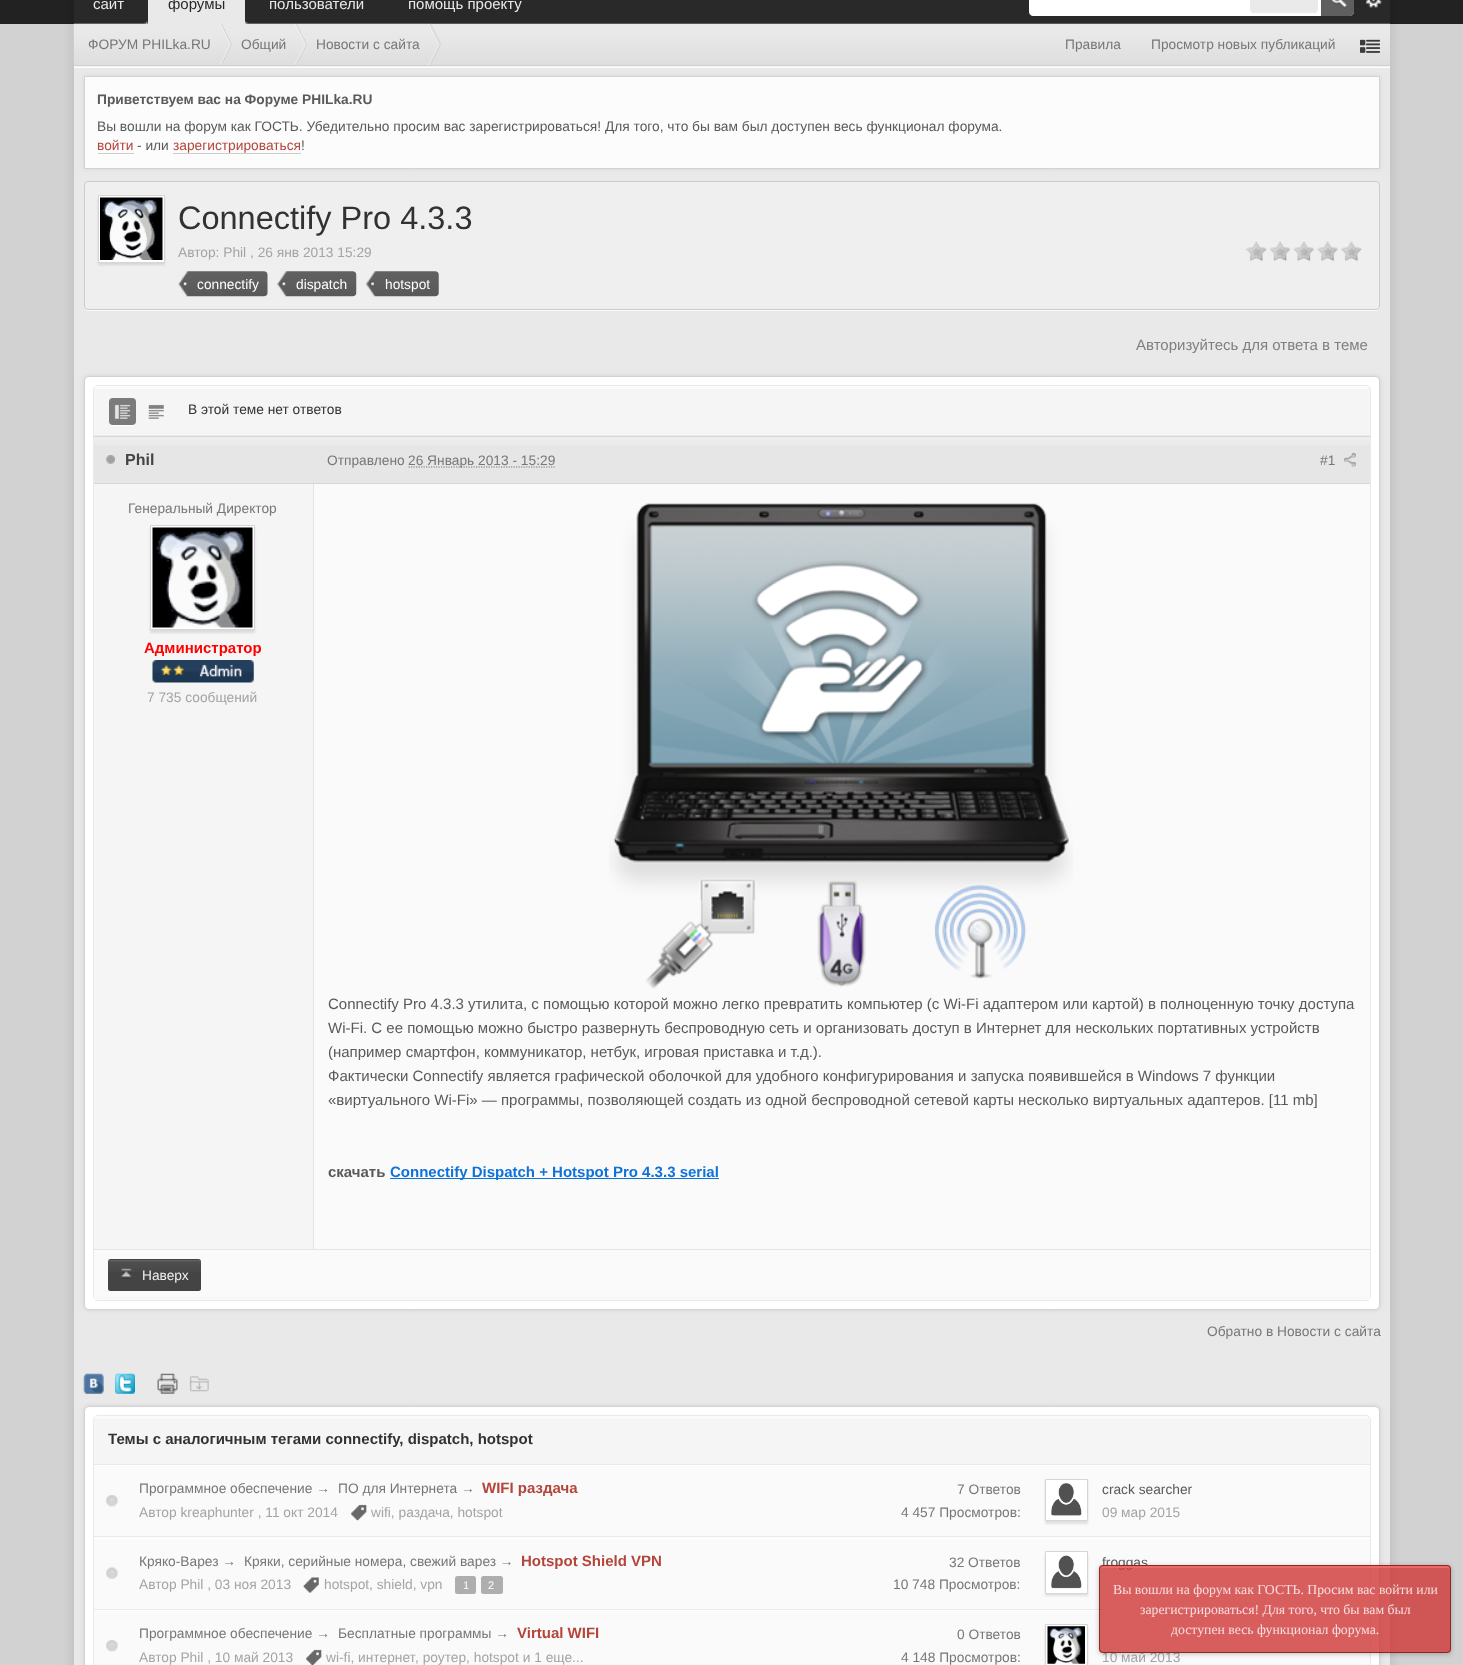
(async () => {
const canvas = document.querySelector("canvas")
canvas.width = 1463
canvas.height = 1665
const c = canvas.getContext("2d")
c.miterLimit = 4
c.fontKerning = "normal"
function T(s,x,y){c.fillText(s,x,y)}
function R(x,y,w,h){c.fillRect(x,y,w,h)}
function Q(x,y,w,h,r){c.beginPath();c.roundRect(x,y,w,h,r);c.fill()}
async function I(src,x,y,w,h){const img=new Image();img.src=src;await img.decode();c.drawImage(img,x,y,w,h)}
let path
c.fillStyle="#d2d2d2"
R(0,0,1463,1665)
c.fillStyle="#222"
R(0,0,1463,24)
c.fillStyle="#0000001f"
c.filter="blur(6px)"
c.beginPath()
c.rect(74,-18,1316,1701)
c.fill()
c.filter="none"
c.fillStyle="#292929"
R(74,0,1316,24)
c.font="15px Liberation Sans"
c.fillStyle="#e9e9e9"
T("сайт",93,9)
R(74,68,1316,1597)
c.fillStyle="#00000012"
c.filter="blur(2.5px)"
c.beginPath()
c.rect(84,76,1296,93)
c.fill()
c.filter="none"
c.fillStyle="#fbfbfb"
R(74,66,1316,2)
await I("5.png",73,23,1317,44)
await I("6.png",74,23,159,42)
await I("8.png",236,23,72,42)
c.fillStyle="#e9e9e9"
R(148,0,97,24)
c.fillStyle="#2d2d2d"
R(147,0,1,2)
c.fillStyle="#292929"
T("форумы",168,9)
await I("1.png",144,20,4,4)
await I("2.png",245,20,4,4)
c.fillStyle="#e9e9e9"
T("пользователи",269,9)
T("помощь проекту",408,9)
c.fillStyle="#fff"
path = new Path2D("M1033-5h316c3 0 5 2 5 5v11c0 3-2 5-5 5h-316c-2 0-4-2-4-4v-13c0-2 2-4 4-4z")
c.fill(path)
c.fillStyle="#eaeaea"
Q(1250,-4,68,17,4)
c.fillStyle="#5f5f5f"
path = new Path2D("M1321-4h29c2 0 4 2 4 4v12c0 2-2 4-4 4h-29z")
c.fill(path)
await I("3.png",1331,0,16,9)
await I("4.png",1366,0,16,8)
c.fillStyle="#cecece"
R(74,65,1316,1)
c.font="13.75px Liberation Sans"
c.fillStyle="#777"
T("ФОРУМ PHILka.RU",88,49)
await I("7.png",222,24,14,41)
T("Общий",241,49)
await I("9.png",297,23,14,42)
await I("10.png",311,23,131,42)
T("Новости с сайта",316,49)
T("Правила",1065,49)
T("Просмотр новых публикаций",1151,49)
await I("11.png",1360,39,20,14)
await I("12.png",1360,39,20,14)
c.fillStyle="#fcfcfc"
c.beginPath()
c.rect(84.5,76.5,1295,92)
c.fill()
c.strokeStyle="#d2d2d2"
c.stroke()
c.font="bold 13.75px Liberation Sans"
c.fillStyle="#5a5a5a"
T("Приветствуем вас на Форуме PHILka.RU",97,104)
c.font="13.75px Liberation Sans"
T("Вы вошли на форум как ГОСТЬ. Убедительно просим вас зарегистрироваться! Для того, что бы вам был доступен весь функционал форума.",97,131)
c.fillStyle="#b4453b"
T("войти",97,150)
c.fillStyle="#ccc"
R(98,153,36,1)
c.fillStyle="#5a5a5a"
T("- или",137,150)
c.fillStyle="#b4453b"
T("зарегистрироваться",173,150)
c.fillStyle="#ccc"
R(173,153,128,1)
c.fillStyle="#5a5a5a"
T("!",301,150)
c.fillStyle="#fbfbfb"
path = new Path2D("M84 308c0 2 2 3 4 3h1288c2 0 4-2 4-4v-1c0 2-2 4-4 4h-1288c-2 0-3-1-4-2z")
c.fill(path)
c.fillStyle="#efefef"
c.beginPath()
c.roundRect(84.5,181.5,1295,128,3.5)
c.fill()
c.strokeStyle="#ccc"
c.stroke()
c.fillStyle="#0000001a"
c.filter="blur(1px)"
c.beginPath()
c.rect(98,198,67,67)
c.fill()
c.filter="none"
c.fillStyle="#fff"
c.beginPath()
c.rect(98.5,195.5,66,67)
c.fill()
c.strokeStyle="#d5d5d5"
c.stroke()
await I("13.png",100,197,63,63)
c.font="32.5px Liberation Sans"
c.fillStyle="#323232"
T("Connectify Pro 4.3.3",178,229)
c.font="13.75px Liberation Sans"
c.fillStyle="#a4a4a4"
T("Автор: Phil , 26 янв 2013 15:29",178,257)
await I("14.png",1246,241,21,21)
await I("15.png",1270,241,20,21)
await I("16.png",1293,241,21,21)
await I("17.png",1317,241,21,21)
await I("14.png",1341,241,21,21)
await I("18.png",178,271,90,26)
c.fillStyle="#fff"
T("connectify",197,289)
await I("19.png",277,271,80,26)
T("dispatch",296,289)
await I("20.png",366,271,73,26)
T("hotspot",385,289)
c.font="15px Liberation Sans"
c.fillStyle="#7f7f7f"
T("Авторизуйтесь для ответа в теме",1136,350)
c.fillStyle="#0000001a"
c.filter="blur(2.5px)"
c.beginPath()
c.roundRect(84,376,1296,934,5)
c.fill()
c.filter="none"
c.fillStyle="#fff"
c.beginPath()
c.roundRect(84.5,376.5,1295,933,4.5)
c.fill()
c.strokeStyle="#d2d2d2"
c.stroke()
c.fillStyle="#fafafa"
c.beginPath()
c.roundRect(93.5,385.5,1277,915,4.5)
c.fill()
c.strokeStyle="#eaeaea"
c.stroke()
c.fillStyle="#f5f5f5"
c.beginPath()
c.roundRect(94,386,1276,50,[5,5,0,0])
c.fill()
c.fillStyle="#ffffff94"
R(95,386,1273,3)
c.fillStyle="#eaeaea"
R(94,435,1276,1)
c.fillStyle="#fff"
path = new Path2D("M109 423c.5 1.5 2 3 4 3h19c2 0 3.5-1.5 4-3c-.5 1-2 2-3.5 2h-20c-1.5 0-3-1-3.5-2z")
c.fill(path)
c.fillStyle="#7b7b7b"
Q(109,398,27,27,4)
await I("21.png",114,404,17,15)
await I("22.png",148,404,16,15)
c.font="13.75px Liberation Sans"
c.fillStyle="#323232"
T("В этой теме нет ответов",188,414)
c.fillStyle="#f5f5f5"
R(94,484,219,765)
c.fillStyle="#e6e6e6"
R(94,437,1276,46)
await I("23.png",94,437,1276,8)
c.fillStyle="#d7d7d7"
R(94,436,1276,1)
R(94,483,1276,1)
await I("24.png",106,455,9,9)
c.font="bold 16px Liberation Sans"
c.fillStyle="#444"
T("Phil",125,465)
c.font="13.75px Liberation Sans"
c.fillStyle="#777"
T("Отправлено",327,465)
path = new Path2D("M408.5 467h147")
c.strokeStyle="#777"
c.lineWidth=1.2
c.setLineDash([1.25,1.25])
c.stroke(path)
T("26 Январь 2013 - 15:29",408,465)
T("#1",1320,465)
await I("25.png",1344,453,12,14)
T("Генеральный Директор",128,513)
c.fillStyle="#0000001a"
c.filter="blur(1px)"
c.beginPath()
c.rect(150,528,105,105)
c.fill()
c.filter="none"
c.fillStyle="#fff"
c.beginPath()
c.rect(150.5,525.5,104,104)
c.fill()
c.strokeStyle="#d5d5d5"
c.lineWidth=1
c.setLineDash([])
c.stroke()
await I("26.png",152,527,101,101)
c.font="bold 15px Liberation Sans"
c.fillStyle="#f00"
T("Администратор",144,653)
await I("27.png",152,660,102,23)
c.font="13.75px Liberation Sans"
c.fillStyle="#a4a4a4"
T("7 735 сообщений",147,702)
c.fillStyle="#e4e4e4"
R(313,484,1,765)
await I("28.png",609,503,464,486)
c.font="15px Liberation Sans"
c.fillStyle="#5a5a5a"
T("Connectify Pro 4.3.3 утилита, с помощью которой можно легко превратить компьютер (с Wi-Fi адаптером или картой) в полноценную точку доступа",328,1009)
T("Wi-Fi. С ее помощью можно быстро развернуть беспроводную сеть и организовать доступ в Интернет для нескольких портативных устройств",328,1033)
T("(например смартфон, коммуникатор, нетбук, игровая приставка и т.д.).",328,1057)
T("Фактически Connectify является графической оболочкой для удобного конфигурирования и запуска появившейся в Windows 7 функции",328,1081)
T("«виртуального Wi-Fi» — программы, позволяющей создать из одной беспроводной сетевой карты несколько виртуальных адаптеров. [11 mb]",328,1105)
c.font="bold 15px Liberation Sans"
T("скачать",328,1177)
c.fillStyle="#0f72da"
R(390,1178,329,1)
T("Connectify Dispatch + Hotspot Pro 4.3.3 serial",390,1177)
c.fillStyle="#f8f8f8"
R(94,1297,1276,3)
c.fillStyle="#e4e4e4"
R(94,1249,1276,1)
c.fillStyle="#444"
Q(108,1259,93,32,2.5)
await I("29.png",108,1260,93,12)
await I("30.png",121,1268,11,11)
c.font="13.75px Liberation Sans"
c.fillStyle="#f0f0f0"
T("Наверх",142,1280)
c.fillStyle="#777"
T("Обратно в Новости с сайта",1207,1336)
await I("31.png",83,1373,21,21)
await I("32.png",115,1373,20,21)
await I("33.png",157,1373,21,21)
await I("34.png",189,1376,20,16)
c.fillStyle="#0000001a"
c.filter="blur(2.5px)"
c.beginPath()
c.roundRect(84,1406,1296,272,5)
c.fill()
c.filter="none"
c.fillStyle="#fff"
c.beginPath()
c.roundRect(84.5,1406.5,1295,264,4.5)
c.fill()
c.strokeStyle="#d2d2d2"
c.stroke()
c.fillStyle="#fafafa"
c.beginPath()
c.roundRect(93.5,1415.5,1277,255,4.5)
c.fill()
c.strokeStyle="#eaeaea"
c.stroke()
c.fillStyle="#f5f5f5"
c.beginPath()
c.roundRect(94,1416,1276,49,[5,5,0,0])
c.fill()
c.fillStyle="#ffffff94"
R(95,1416,1273,3)
c.fillStyle="#eaeaea"
R(94,1464,1276,1)
c.font="bold 15px Liberation Sans"
c.fillStyle="#323232"
T("Темы с аналогичным тегами connectify, dispatch, hotspot",108,1444)
c.fillStyle="#fff"
R(94,1465,1276,1)
c.fillStyle="#eaeaea"
R(94,1536,1276,1)
await I("35.png",106,1495,12,12)
c.font="13.75px Liberation Sans"
c.fillStyle="#777"
T("Программное обеспечение →",139,1493)
T("ПО для Интернета →",338,1493)
c.font="bold 15px Liberation Sans"
c.fillStyle="#b4453b"
T("WIFI раздача",482,1493)
c.font="13.75px Liberation Sans"
c.fillStyle="#a4a4a4"
T("Автор kreaphunter , 11 окт 2014",139,1517)
await I("36.png",351,1504,16,17)
T("wifi, раздача, hotspot",371,1517)
c.fillStyle="#777"
T("7 Ответов",957,1494)
T("4 457 Просмотров:",901,1517)
c.fillStyle="#0000001a"
c.filter="blur(1px)"
c.beginPath()
c.rect(1045,1481,43,43)
c.fill()
c.filter="none"
c.fillStyle="#fff"
c.beginPath()
c.rect(1045.5,1479.5,42,41)
c.fill()
c.strokeStyle="#d5d5d5"
c.stroke()
await I("37.png",1051,1483,31,33)
c.fillStyle="#5a5a5a"
T("crack searcher",1102,1494)
c.fillStyle="#a4a4a4"
T("09 мар 2015",1102,1517)
c.fillStyle="#fff"
R(94,1538,1276,1)
c.fillStyle="#eaeaea"
R(94,1609,1276,1)
await I("38.png",106,1567,12,12)
c.fillStyle="#777"
T("Кряко-Варез →",139,1566)
T("Кряки, серийные номера, свежий варез →",244,1566)
c.font="bold 15px Liberation Sans"
c.fillStyle="#b4453b"
T("Hotspot Shield VPN",521,1566)
c.font="13.75px Liberation Sans"
c.fillStyle="#a4a4a4"
T("Автор Phil , 03 ноя 2013",139,1589)
await I("39.png",303,1577,16,16)
T("hotspot, shield, vpn",324,1589)
c.fillStyle="#aeaeae"
Q(455,1576,21,18,2.5)
c.font="11px Liberation Sans"
c.fillStyle="#fff"
T("1",463,1589)
c.fillStyle="#aeaeae"
Q(481,1576,22,18,2.5)
c.fillStyle="#fff"
T("2",488,1589)
c.font="13.75px Liberation Sans"
c.fillStyle="#777"
T("32 Ответов",949,1567)
T("10 748 Просмотров:",893,1589)
c.fillStyle="#0000001a"
c.filter="blur(1px)"
c.beginPath()
c.rect(1045,1554,43,42)
c.fill()
c.filter="none"
c.fillStyle="#fff"
c.beginPath()
c.rect(1045.5,1551.5,42,42)
c.fill()
c.stroke()
await I("40.png",1051,1555,31,34)
c.fillStyle="#5a5a5a"
T("froggas",1102,1567)
c.fillStyle="#fff"
R(94,1610,1276,1)
await I("35.png",106,1640,12,12)
c.fillStyle="#777"
T("Программное обеспечение →",139,1638)
T("Бесплатные программы →",338,1638)
c.font="bold 15px Liberation Sans"
c.fillStyle="#b4453b"
T("Virtual WIFI",517,1638)
c.font="13.75px Liberation Sans"
c.fillStyle="#a4a4a4"
T("Автор Phil , 10 май 2013",139,1662)
await I("41.png",306,1649,16,16)
T("wi-fi, интернет",326,1662)
T(", роутер, hotspot и 1 еще...",415,1662)
c.fillStyle="#777"
T("0 Ответов",957,1639)
T("4 148 Просмотров:",901,1662)
c.fillStyle="#0000001a"
c.filter="blur(1px)"
c.beginPath()
c.rect(1045,1626,43,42)
c.fill()
c.filter="none"
c.fillStyle="#fff"
c.beginPath()
c.rect(1045.5,1624.5,42,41)
c.fill()
c.stroke()
await I("42.png",1047,1626,38,38)
c.fillStyle="#a4a4a4"
T("10 май 2013",1102,1662)
c.save()
path = new Path2D("M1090 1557h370v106h-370zm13 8h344c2 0 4 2 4 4v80c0 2-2 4-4 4h-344c-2 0-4-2-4-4v-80c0-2 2-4 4-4z")
c.clip(path,"evenodd")
c.fillStyle="#0000003d"
c.filter="blur(2.5px)"
c.beginPath()
c.roundRect(1099,1566,352,88,4)
c.fill()
c.filter="none"
c.restore()
c.fillStyle="#cf3737cc"
Q(1099,1565,352,88,4)
c.fillStyle="#f66c6ccc"
path = new Path2D("M1102 1568h346c1 0 2 1 2 2v-3l-2-1h-346c-2 0-2 2-2 4c0-1 1-2 2-2z")
c.fill(path)
c.beginPath()
c.roundRect(1099.5,1565.5,351,87,3.5)
c.strokeStyle="#771b1bcc"
c.stroke()
c.font="13.75px Liberation Serif"
c.fillStyle="#f7dede"
T("Вы вошли на форум как ГОСТЬ. Просим вас войти или",1113,1594)
T("зарегистрироваться! Для того, что бы вам был",1140,1614)
T("доступен весь функционал форума.",1171,1634)
})()
